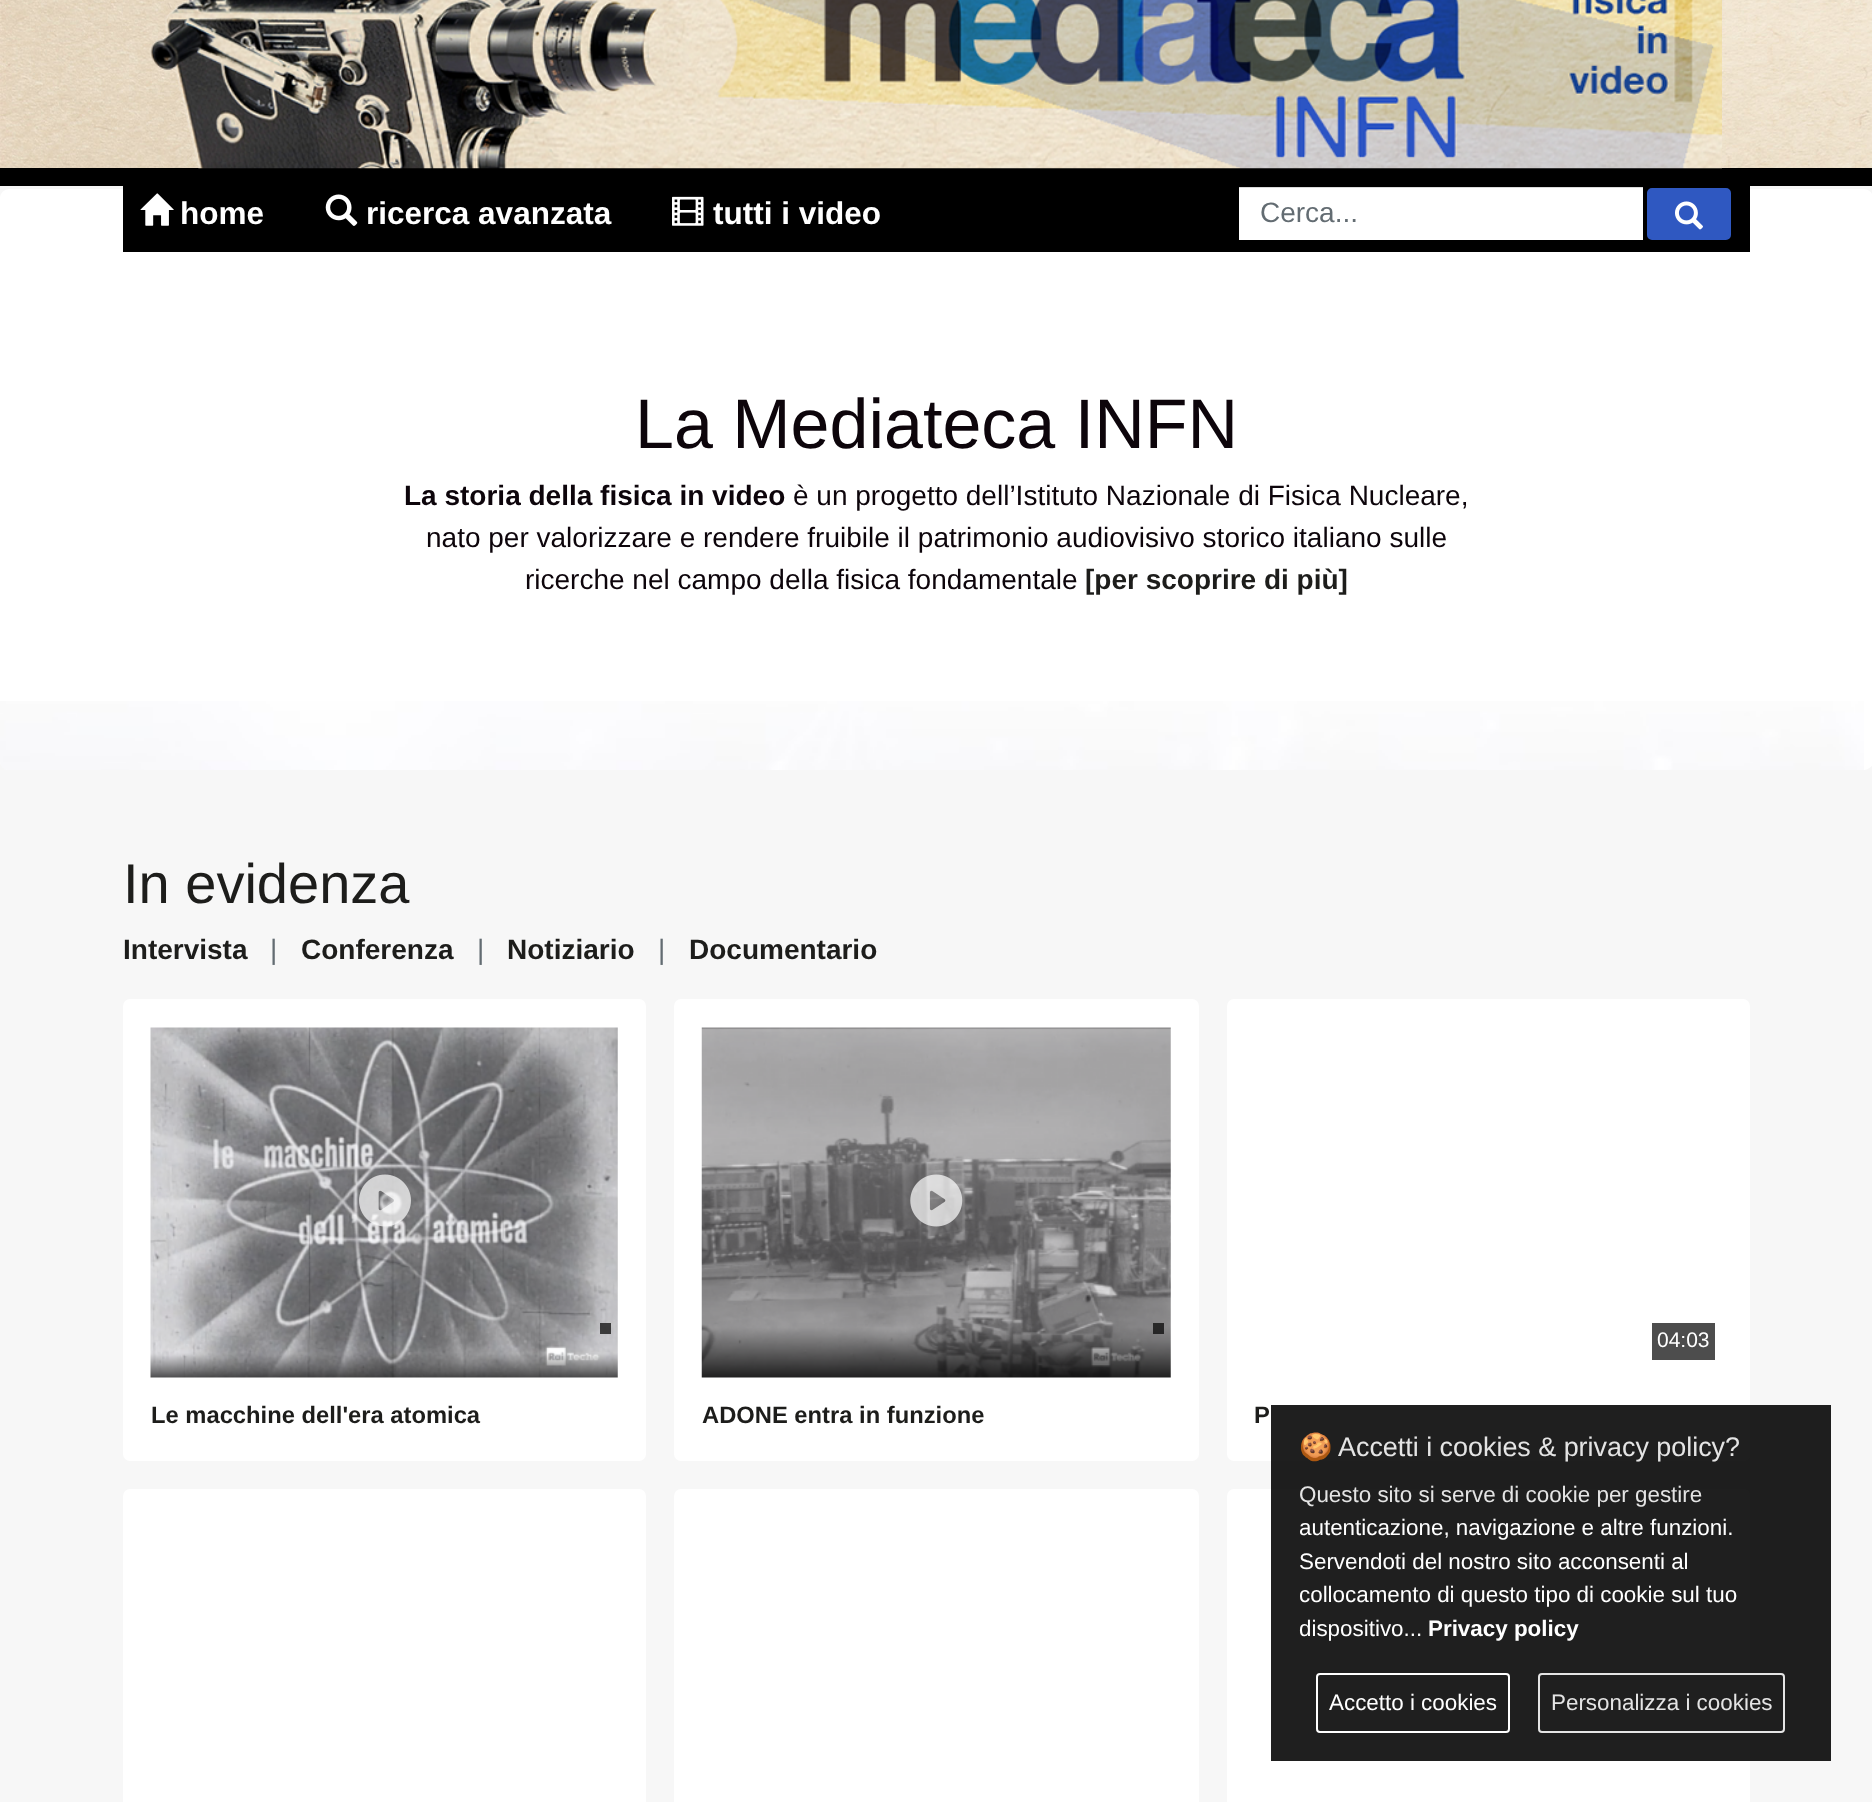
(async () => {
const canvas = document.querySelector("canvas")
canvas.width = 1872
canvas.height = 1802
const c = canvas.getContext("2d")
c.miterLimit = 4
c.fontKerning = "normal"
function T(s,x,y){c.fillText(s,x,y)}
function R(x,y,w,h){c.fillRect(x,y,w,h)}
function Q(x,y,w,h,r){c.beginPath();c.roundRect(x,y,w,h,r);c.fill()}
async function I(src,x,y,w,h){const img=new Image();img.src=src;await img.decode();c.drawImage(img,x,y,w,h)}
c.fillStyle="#f7f7f7"
R(0,0,1872,1802)
await I("1.png",0,0,1872,168)
c.fillStyle="#000"
R(0,168,1872,18)
await I("2.png",149,0,1573,169)
c.fillStyle="#fff"
Q(0,189,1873,581,9)
c.fillStyle="#000"
R(123,186,1627,66)
await I("3.png",140,193,34,33)
c.font="bold 31.5px Liberation Sans"
c.fillStyle="#fff"
T("home",180,224)
await I("4.png",325,194,33,32)
T("ricerca avanzata",366,224)
await I("5.png",672,196,32,30)
T("tutti i video",713,224)
R(1239,187,404,53)
c.strokeStyle="#00000026"
c.lineWidth=2
c.strokeRect(1238,187,406,54)
c.font="28px Liberation Sans"
c.fillStyle="#636c72"
T("Cerca...",1260,222)
c.fillStyle="#2f58c1"
c.beginPath()
c.roundRect(1646,187,86,54,6)
c.fill()
c.strokeStyle="#000"
c.stroke()
await I("6.png",1675,201,28,29)
await I("7.png",0,701,1864,69)
c.font="70px Liberation Sans"
c.fillStyle="#0d050b"
T("La Mediateca INFN",635,448)
c.font="bold 28px Liberation Sans"
T("La storia della fisica in video",404,505)
c.font="28px Liberation Sans"
T("è un progetto dell’Istituto Nazionale di Fisica Nucleare,",793,505)
T("nato per valorizzare e rendere fruibile il patrimonio audiovisivo storico italiano sulle",426,547)
T("ricerche nel campo della fisica fondamentale",525,589)
c.font="bold 28px Liberation Sans"
c.fillStyle="#1d1d1b"
T("[per scoprire di più]",1085,589)
c.font="56px Liberation Sans"
T("In evidenza",123,903)
c.font="bold 28px Liberation Sans"
T("Intervista",123,959)
c.font="28px Liberation Sans"
c.fillStyle="#636c72"
T("|",270,959)
c.font="bold 28px Liberation Sans"
c.fillStyle="#1d1d1b"
T("Conferenza",301,959)
c.font="28px Liberation Sans"
c.fillStyle="#636c72"
T("|",477,959)
c.font="bold 28px Liberation Sans"
c.fillStyle="#1d1d1b"
T("Notiziario",507,959)
c.font="28px Liberation Sans"
c.fillStyle="#636c72"
T("|",658,959)
c.font="bold 28px Liberation Sans"
c.fillStyle="#1d1d1b"
T("Documentario",689,959)
c.fillStyle="#fff"
Q(123,999,523,462,7)
await I("8.png",150,1027,468,351)
await I("9.png",359,1174,52,53)
c.fillStyle="#000000b3"
R(600,1323,11,11)
c.font="bold 23.75px Liberation Sans"
c.fillStyle="#1d1d1b"
T("Le macchine dell'era atomica",151,1423)
c.fillStyle="#fff"
Q(674,999,525,462,7)
await I("10.png",701,1027,470,351)
await I("11.png",910,1174,53,53)
c.fillStyle="#000000b3"
R(1153,1323,11,11)
c.fillStyle="#1d1d1b"
T("ADONE entra in funzione",702,1423)
c.fillStyle="#fff"
Q(1227,999,523,462,7)
c.fillStyle="#4d4d4d"
R(1652,1323,63,37)
c.font="21px Liberation Sans"
c.fillStyle="#fff"
T("04:03",1657,1347)
c.font="bold 23.75px Liberation Sans"
c.fillStyle="#1d1d1b"
T("P",1254,1423)
c.fillStyle="#fff"
Q(123,1489,523,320,7)
Q(674,1489,525,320,7)
Q(1227,1489,523,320,7)
c.fillStyle="#000000e0"
R(1271,1405,560,356)
c.font="26.9px Noto Color Emoji"
c.fillStyle="#e4e4e4"
T("🍪",1299,1456)
c.font="26.9px Liberation Sans"
T("Accetti i cookies & privacy policy?",1338,1456)
c.font="22.4px Liberation Sans"
T("Questo sito si serve di cookie per gestire",1299,1502)
c.fillStyle="#fff"
T("autenticazione, navigazione e altre funzioni.",1299,1535)
T("Servendoti del nostro sito acconsenti al",1299,1569)
T("collocamento di questo tipo di cookie sul tuo",1299,1602)
T("dispositivo...",1299,1636)
c.font="bold 22.4px Liberation Sans"
T("Privacy policy",1428,1636)
c.beginPath()
c.roundRect(1317,1674,192,58,3)
c.strokeStyle="#fff"
c.stroke()
c.font="22.4px Liberation Sans"
T("Accetto i cookies",1329,1710)
c.beginPath()
c.roundRect(1539,1674,245,58,3)
c.strokeStyle="#e4e4e4"
c.stroke()
c.fillStyle="#e4e4e4"
T("Personalizza i cookies",1551,1710)
})()
